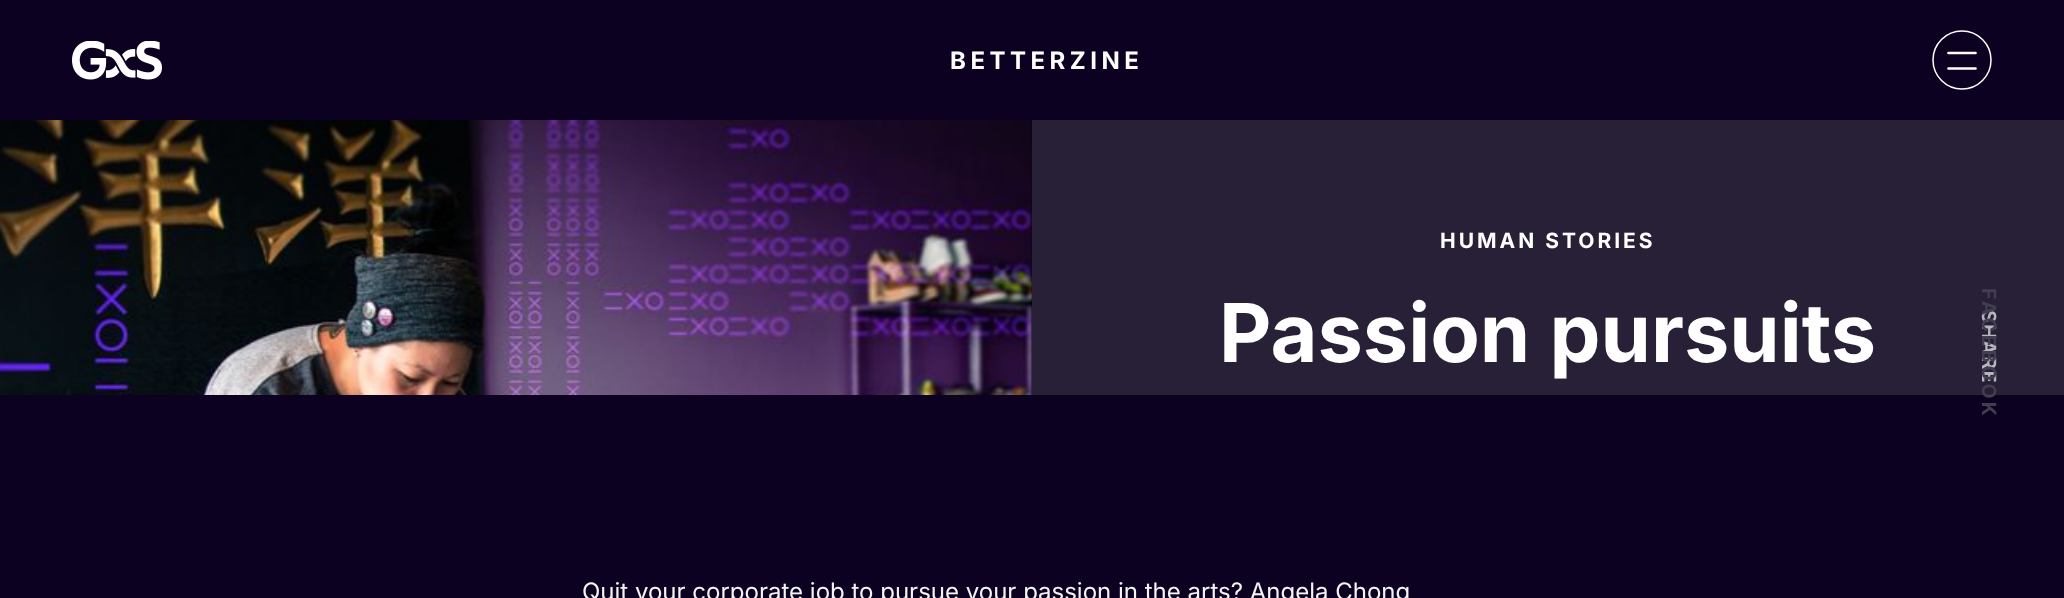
(async () => {
const canvas = document.querySelector("canvas")
canvas.width = 2064
canvas.height = 598
const c = canvas.getContext("2d")
c.miterLimit = 4
c.fontKerning = "normal"
function T(s,x,y){c.fillText(s,x,y)}
function R(x,y,w,h){c.fillRect(x,y,w,h)}
async function I(src,x,y,w,h){const img=new Image();img.src=src;await img.decode();c.drawImage(img,x,y,w,h)}
let path
c.fillStyle="#0c0120"
R(0,0,2064,598)
await I("1.png",72,41,90,39)
c.letterSpacing="4.5px"
c.font="bold 24px Inter"
c.fillStyle="#fff"
T("BETTERZINE",950,69)
path = new Path2D("M1948.5 68.5h27m-27-15.5h27")
c.strokeStyle="#fff"
c.lineWidth=2.7
c.lineCap="round"
c.stroke(path)
c.beginPath()
c.arc(1962,60,29,0,7)
c.lineWidth=1.5
c.stroke()
await I("2.png",0,120,1032,275)
c.fillStyle="#272036"
R(1032,120,1032,275)
c.letterSpacing="3px"
c.font="bold 21px Inter"
c.fillStyle="#fff"
T("HUMAN STORIES",1440,248)
c.letterSpacing="0px"
c.font="bold 81px Inter"
T("Passion pursuits",1219,362)
c.font="24px Inter"
c.fillStyle="#f5f5f5"
T("Quit your corporate job to pursue your passion in the arts? Angela Chong",582,600)
c.letterSpacing="1.5px"
c.font="bold 19.5px Inter"
c.fillStyle="#b7b5bc"
c.save()
c.translate(1982,310)
c.rotate(90 * Math.PI / 180)
c.fillText("SHARE",0,0)
c.restore()
c.letterSpacing="3px"
c.fillStyle="#433d51"
c.save()
c.translate(1982,288)
c.rotate(90 * Math.PI / 180)
c.fillText("FACEBOOK",0,0)
c.restore()
})()
